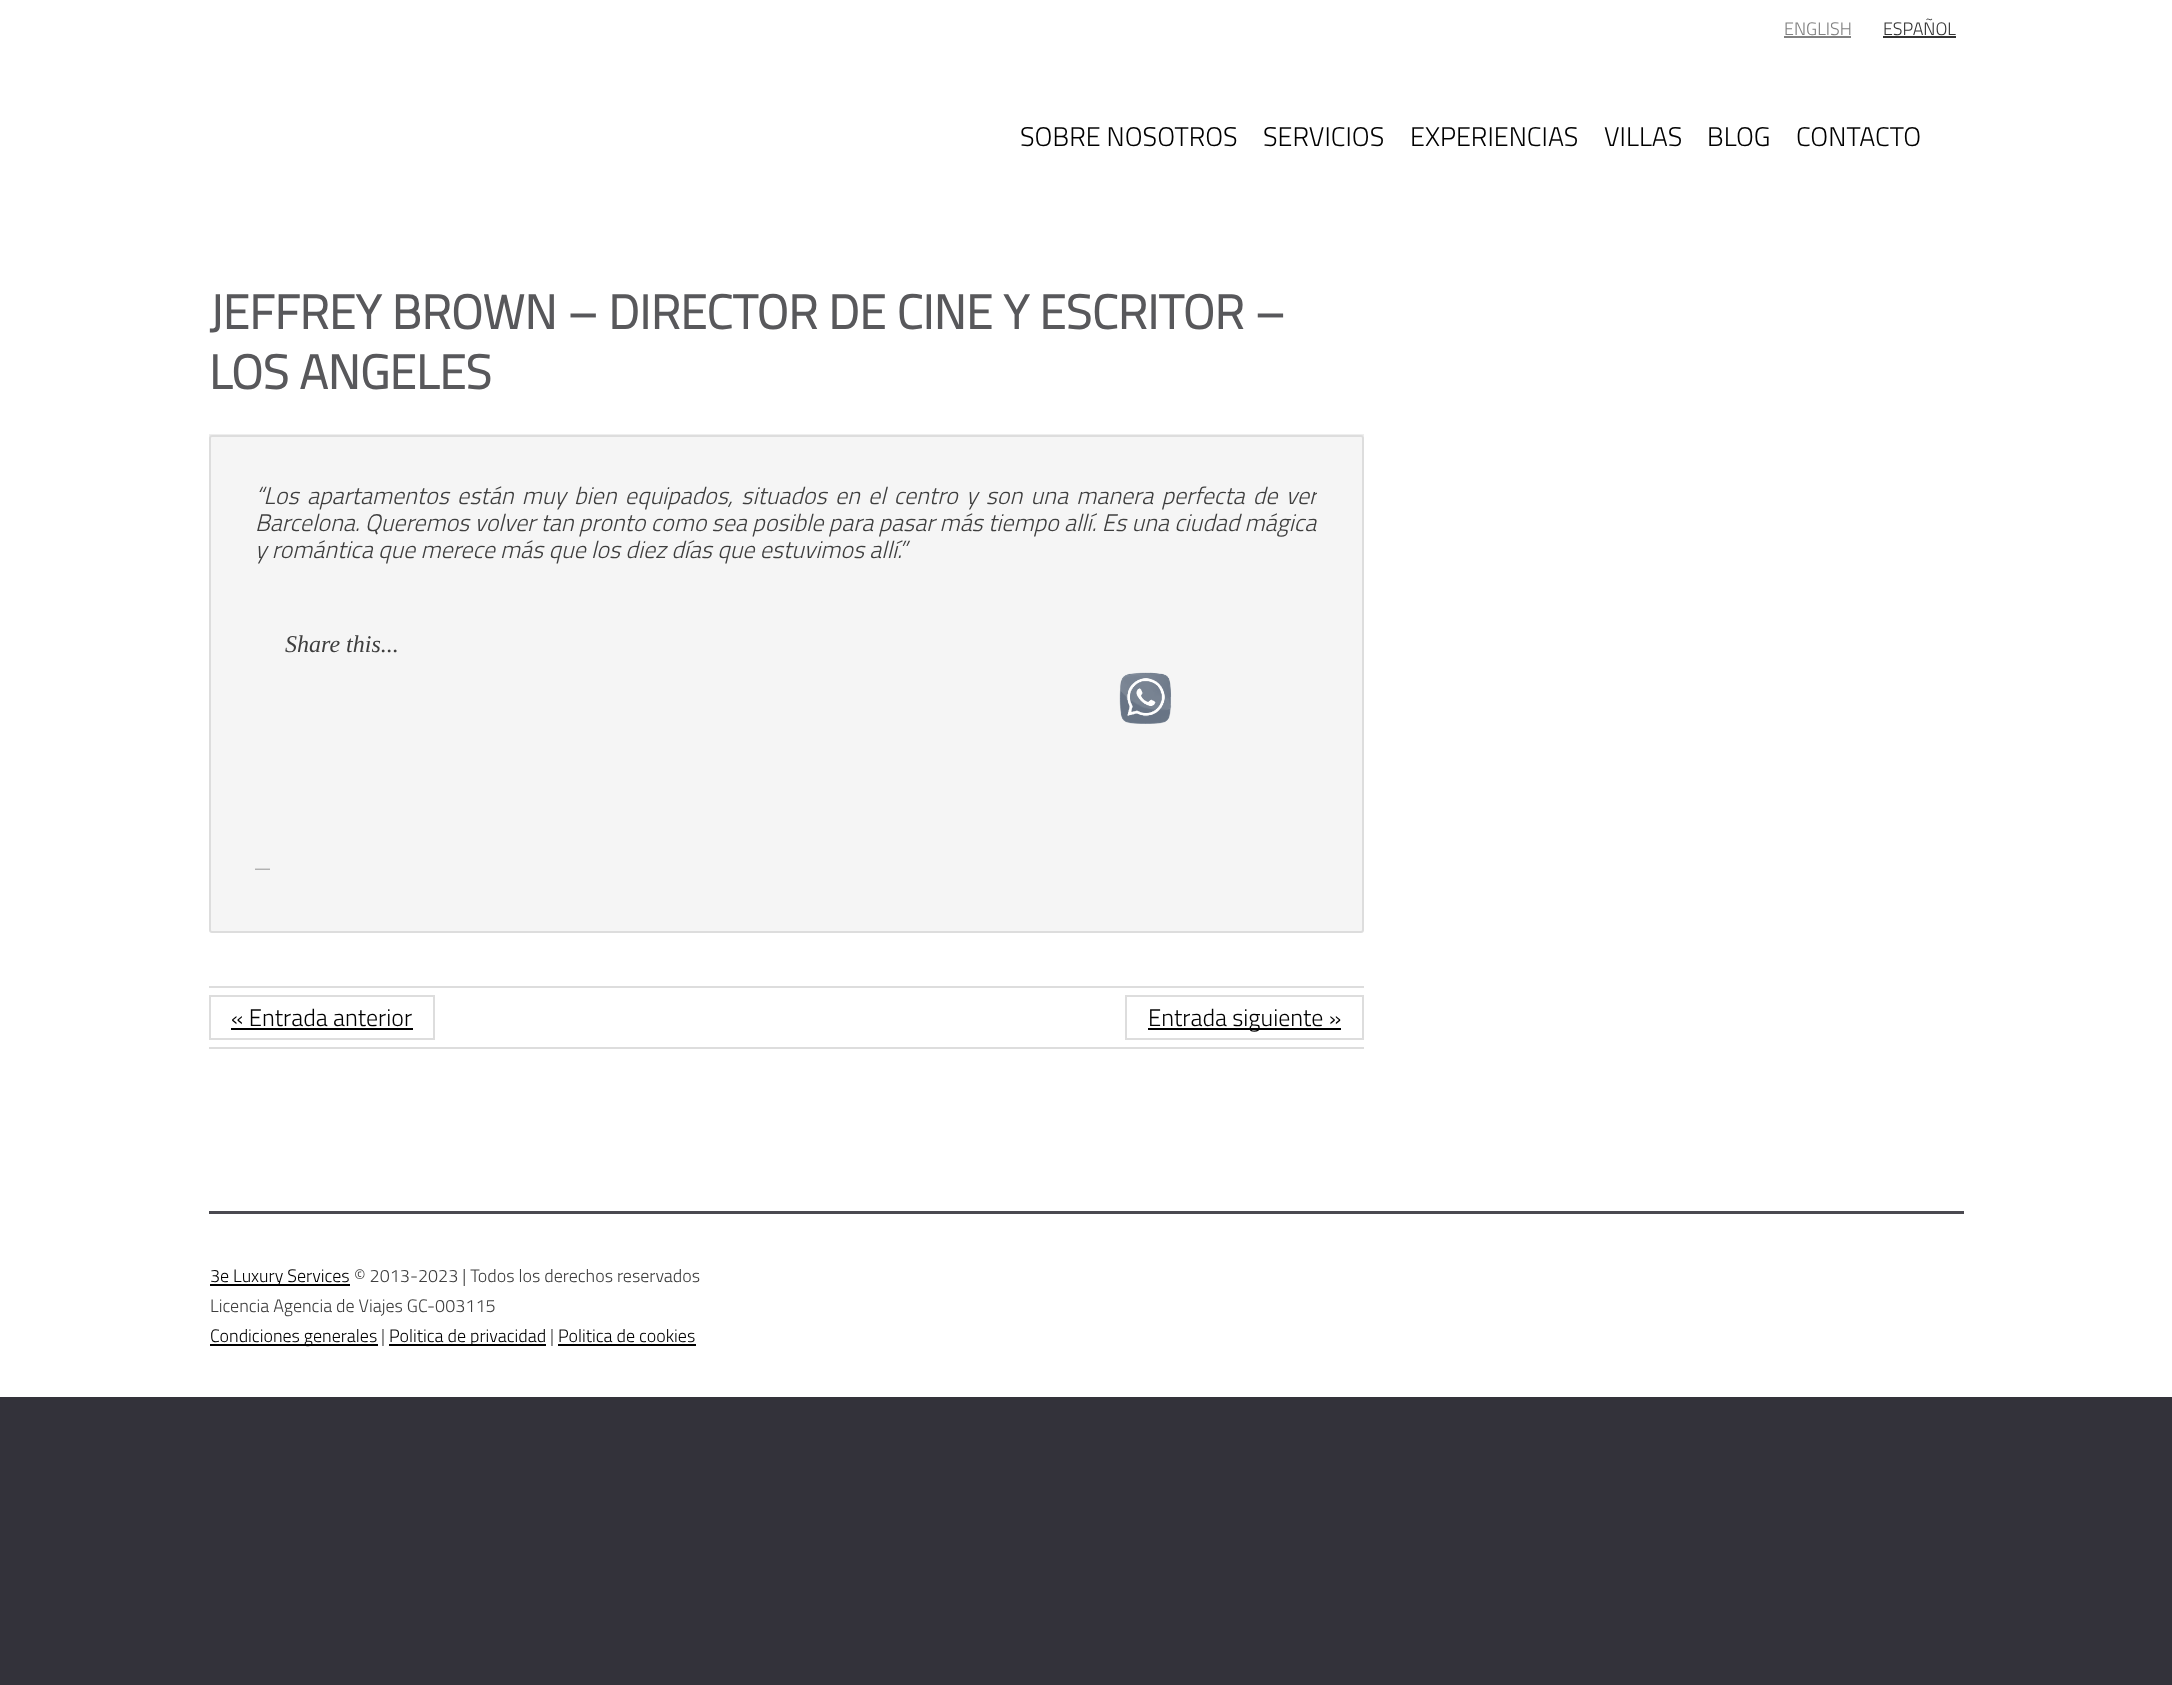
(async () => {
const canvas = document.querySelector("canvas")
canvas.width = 2172
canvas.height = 1685
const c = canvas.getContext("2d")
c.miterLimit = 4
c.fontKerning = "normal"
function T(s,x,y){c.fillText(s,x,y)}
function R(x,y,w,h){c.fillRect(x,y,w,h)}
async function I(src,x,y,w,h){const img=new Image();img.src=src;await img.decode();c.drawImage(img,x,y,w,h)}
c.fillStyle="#33323a"
R(0,0,2172,1685)
c.fillStyle="#fff"
R(0,0,2172,1397)
c.font="300 18px Titillium Web"
c.fillStyle="#808080"
T("ENGLISH",1784,35)
R(1784,36,67,2)
c.fillStyle="#333"
T("ESPAÑOL",1883,35)
R(1883,36,73,2)
c.font="300 27px Titillium Web"
c.fillStyle="#000"
T("SOBRE NOSOTROS",1020,146)
T("SERVICIOS",1263,146)
T("EXPERIENCIAS",1410,146)
T("VILLAS",1604,146)
T("BLOG",1707,146)
T("CONTACTO",1796,146)
c.fillStyle="#eee"
R(209,434,1155,2)
c.font="bold 48px Titillium Web"
c.fillStyle="#58585b"
T("JEFFREY BROWN – DIRECTOR DE CINE Y ESCRITOR –",209,329)
T("LOS ANGELES",209,389)
c.fillStyle="#f5f5f5"
c.beginPath()
c.roundRect(210,436,1153,496,2)
c.fill()
c.strokeStyle="#ddd"
c.lineWidth=2
c.stroke()
c.save()
c.beginPath()
c.rect(255,482,1062,405)
c.clip()
c.wordSpacing="3px"
c.font="italic 300 24px Titillium Web"
c.fillStyle="#3e3e3e"
T("“Los apartamentos están muy bien equipados, situados en el centro y son una manera perfecta de ver",255,504)
c.wordSpacing="0px"
T("Barcelona. Queremos volver tan pronto como sea posible para pasar más tiempo allí. Es una ciudad mágica",255,531)
c.restore()
c.font="italic 300 24px Titillium Web"
c.fillStyle="#3e3e3e"
T("y romántica que merece más que los diez días que estuvimos allí.”",255,558)
c.font="italic 24px Liberation Serif"
T("Share this...",285,652)
await I("1.png",1119,672,53,52)
c.font="15px Liberation Sans"
c.fillStyle="#999"
T("—",255,873)
c.fillStyle="#ddd"
R(209,986,1155,2)
R(209,1047,1155,2)
c.strokeRect(210,996,224,43)
c.font="300 24px Titillium Web"
c.fillStyle="#000"
T("« Entrada anterior",231,1026)
R(231,1028,182,2)
c.strokeRect(1126,996,237,43)
R(1148,1028,193,2)
T("Entrada siguiente »",1148,1026)
c.fillStyle="#4a4950"
R(209,1211,1755,3)
c.fillStyle="#000"
R(210,1284,140,2)
c.font="300 18px Titillium Web"
T("3e Luxury Services",210,1282)
c.fillStyle="#3e3e3e"
T("© 2013-2023 | Todos los derechos reservados",354,1282)
T("Licencia Agencia de Viajes GC-003115",210,1312)
c.fillStyle="#000"
R(210,1344,168,2)
T("Condiciones generales",210,1342)
c.fillStyle="#3e3e3e"
T("|",381,1342)
c.fillStyle="#000"
R(389,1344,157,2)
T("Politica de privacidad",389,1342)
c.fillStyle="#3e3e3e"
T("|",550,1342)
c.fillStyle="#000"
T("Politica de cookies",558,1342)
R(558,1344,138,2)
})()
